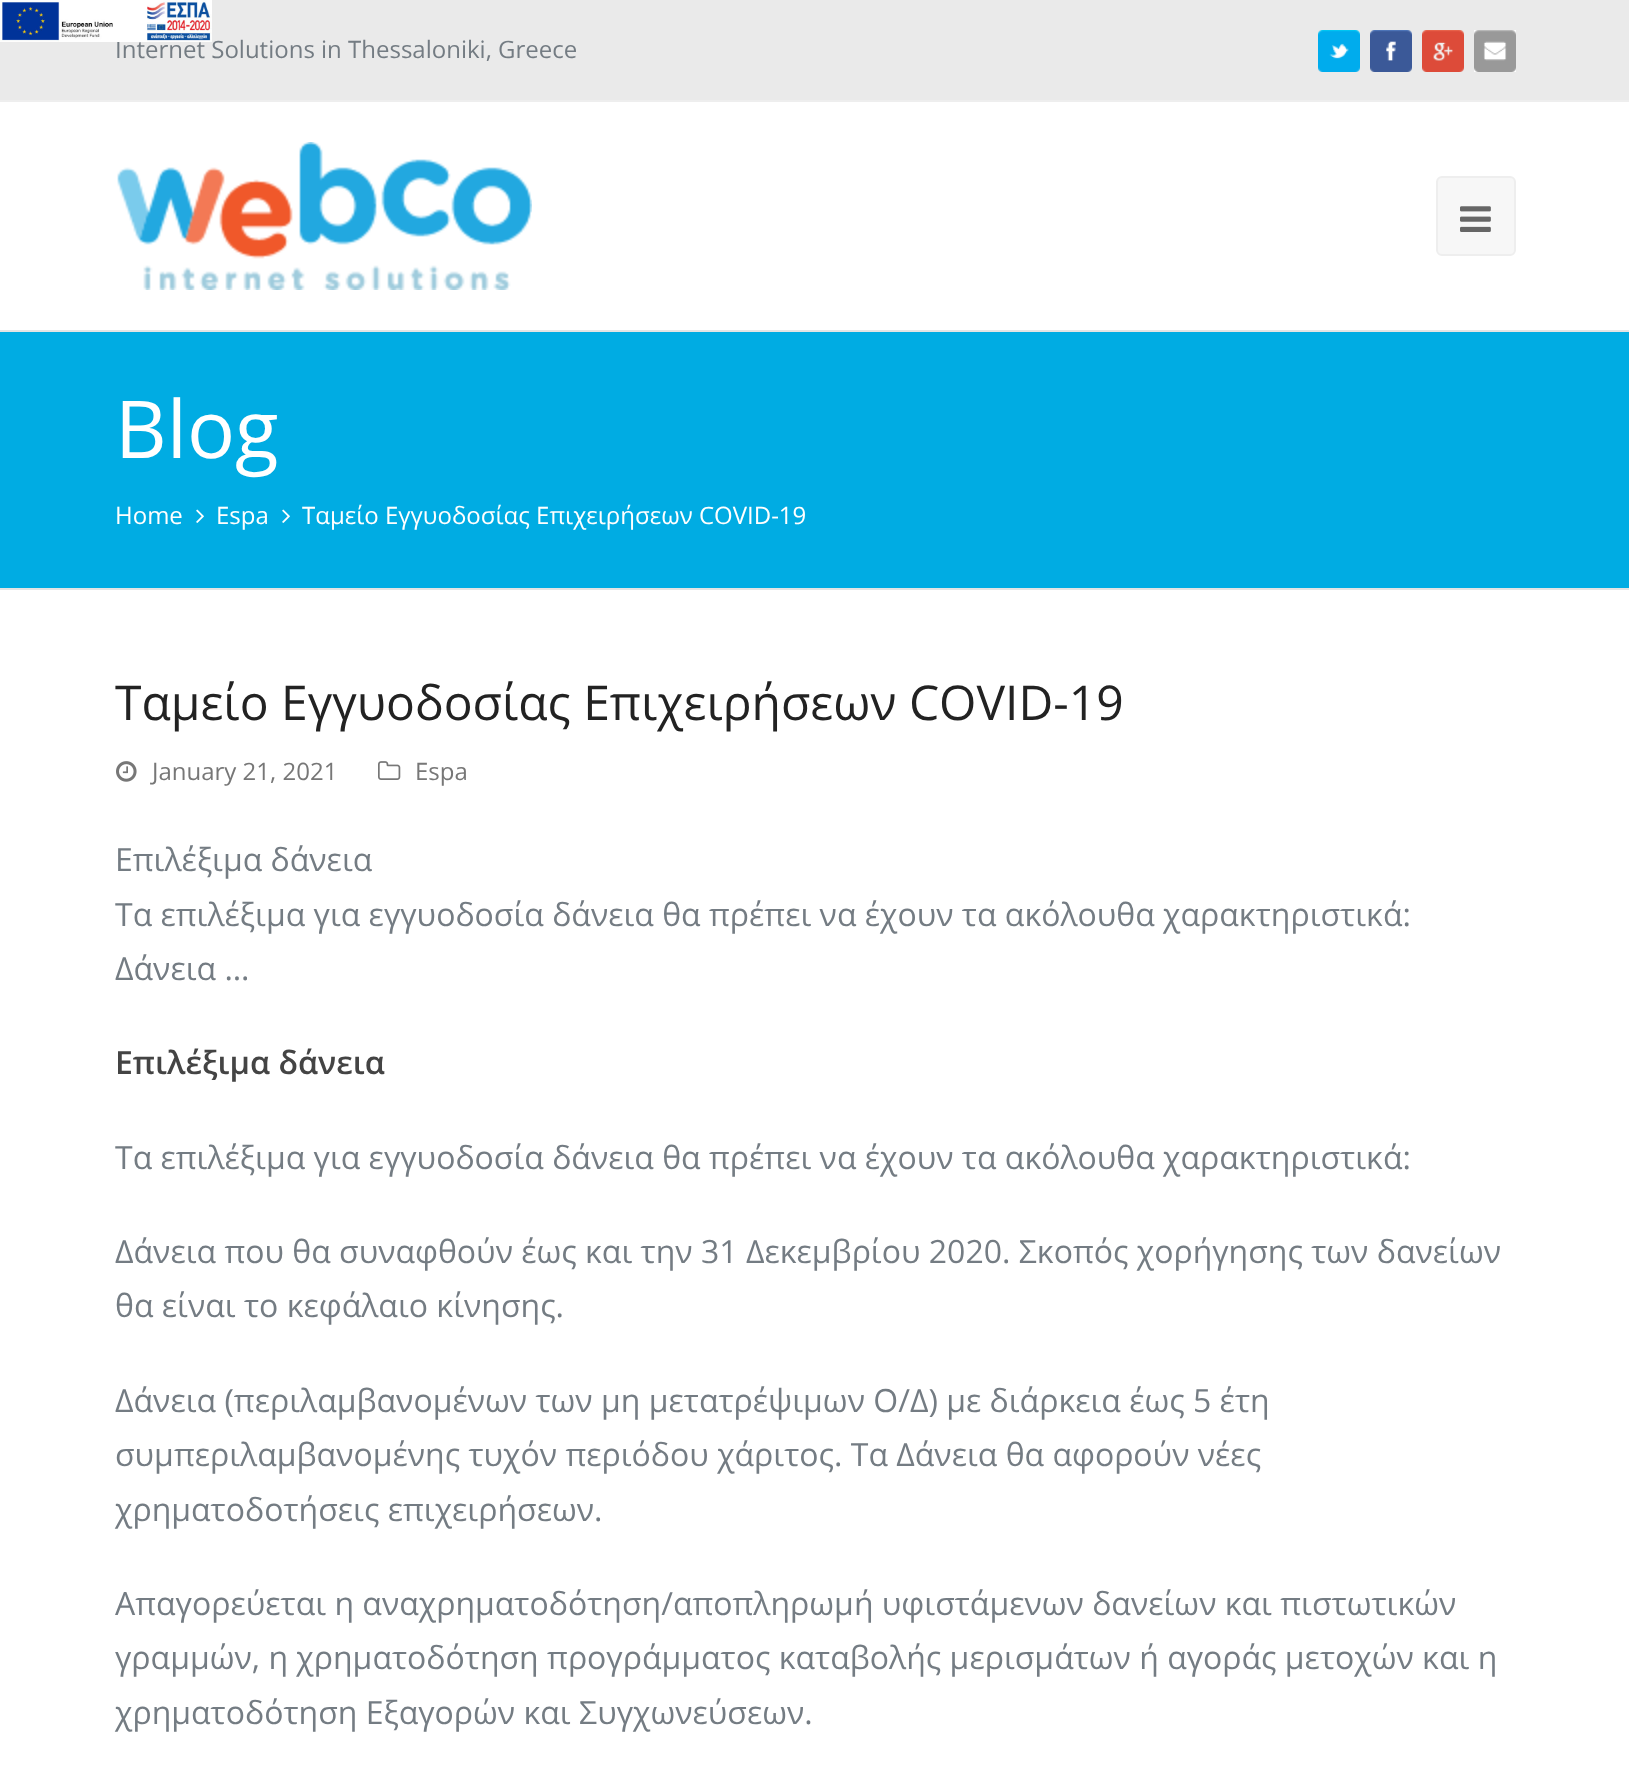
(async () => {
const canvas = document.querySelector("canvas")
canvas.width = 1629
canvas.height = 1767
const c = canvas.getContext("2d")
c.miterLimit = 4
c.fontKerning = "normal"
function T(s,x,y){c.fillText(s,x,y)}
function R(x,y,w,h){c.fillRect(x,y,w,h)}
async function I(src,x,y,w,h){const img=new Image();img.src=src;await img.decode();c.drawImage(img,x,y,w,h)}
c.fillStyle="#fff"
R(0,0,1629,1767)
c.fillStyle="#eaeaea"
R(0,0,1629,100)
c.font="24px Open Sans"
c.fillStyle="#747c83"
T("Internet Solutions in Thessaloniki, Greece",115,58)
await I("1.png",0,0,212,42)
c.fillStyle="#eee"
R(0,100,1629,2)
await I("2.png",1318,30,42,42)
await I("3.png",1370,30,42,42)
await I("4.png",1422,30,42,42)
await I("5.png",1474,30,42,42)
await I("6.png",117,142,415,148)
c.fillStyle="#f7f7f7"
c.beginPath()
c.roundRect(1437,177,78,78,5)
c.fill()
c.strokeStyle="#eee"
c.lineWidth=2
c.stroke()
await I("7.png",1460,206,31,26)
c.fillStyle="#00ace3"
R(0,332,1629,256)
c.fillStyle="#e4e4e4"
R(0,330,1629,2)
R(0,588,1629,2)
c.font="80px Open Sans"
c.fillStyle="#fff"
T("Blog",115,458)
c.font="24px Open Sans"
T("Home",115,524)
await I("8.png",196,509,8,14)
T("Espa",216,524)
await I("8.png",282,509,8,14)
T("Ταμείο Εγγυοδοσίας Επιχειρήσεων COVID-19",302,524)
c.font="48px Open Sans"
c.fillStyle="#222"
T("Ταμείο Εγγυοδοσίας Επιχειρήσεων COVID-19",115,720)
await I("9.png",116,761,21,21)
c.font="24px Open Sans"
c.fillStyle="#777"
T("January 21, 2021",152,780)
await I("10.png",378,761,23,19)
T("Espa",415,780)
c.font="32px Open Sans"
c.fillStyle="#747c83"
T("Επιλέξιμα δάνεια",115,871)
T("Τα επιλέξιμα για εγγυοδοσία δάνεια θα πρέπει να έχουν τα ακόλουθα χαρακτηριστικά:",115,926)
T("Δάνεια …",115,980)
c.font="600 32px Open Sans"
c.fillStyle="#444"
T("Επιλέξιμα δάνεια",115,1074)
c.font="32px Open Sans"
c.fillStyle="#747c83"
T("Τα επιλέξιμα για εγγυοδοσία δάνεια θα πρέπει να έχουν τα ακόλουθα χαρακτηριστικά:",115,1169)
T("Δάνεια που θα συναφθούν έως και την 31 Δεκεμβρίου 2020. Σκοπός χορήγησης των δανείων",115,1263)
T("θα είναι το κεφάλαιο κίνησης.",115,1317)
T("Δάνεια (περιλαμβανομένων των μη μετατρέψιμων Ο/Δ) με διάρκεια έως 5 έτη",115,1412)
T("συμπεριλαμβανομένης τυχόν περιόδου χάριτος. Τα Δάνεια θα αφορούν νέες",115,1466)
T("χρηματοδοτήσεις επιχειρήσεων.",115,1521)
T("Απαγορεύεται η αναχρηματοδότηση/αποπληρωμή υφιστάμενων δανείων και πιστωτικών",115,1615)
T("γραμμών, η χρηματοδότηση προγράμματος καταβολής μερισμάτων ή αγοράς μετοχών και η",115,1669)
T("χρηματοδότηση Εξαγορών και Συγχωνεύσεων.",115,1724)
})()
